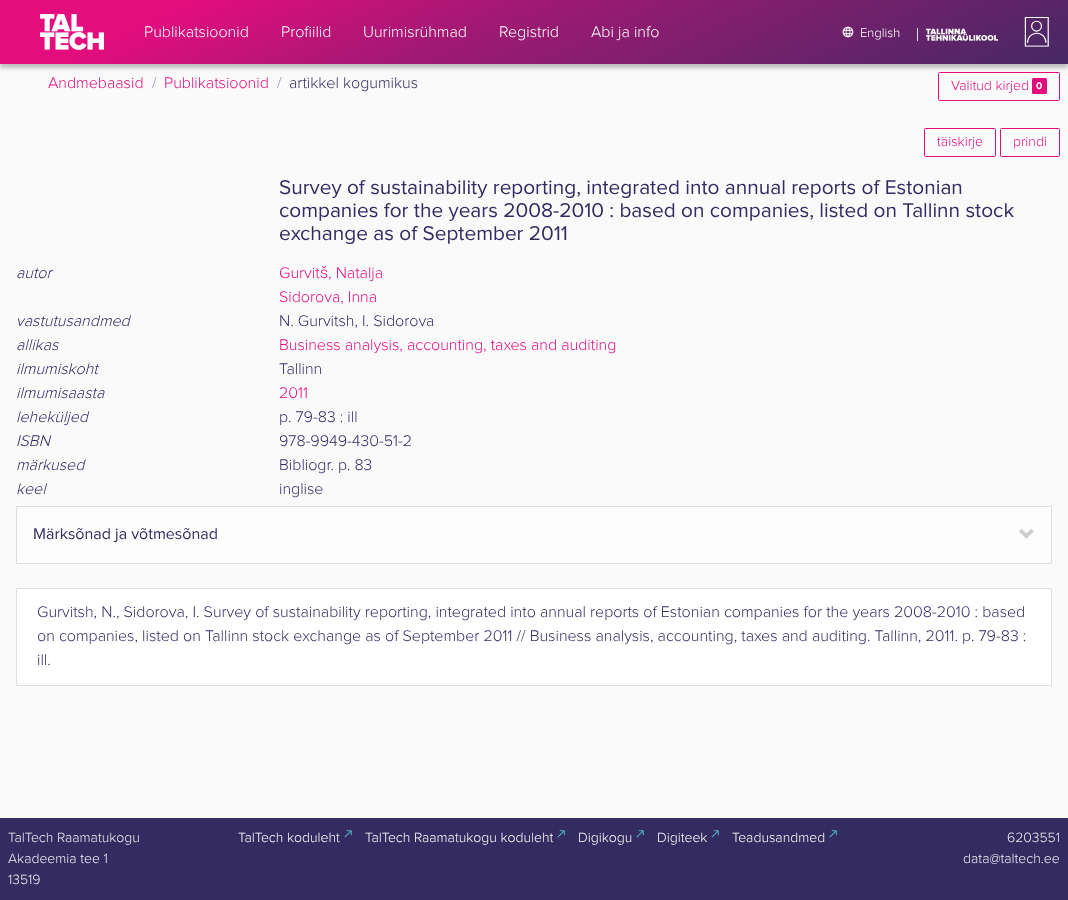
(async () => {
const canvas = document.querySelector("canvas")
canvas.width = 1068
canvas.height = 900
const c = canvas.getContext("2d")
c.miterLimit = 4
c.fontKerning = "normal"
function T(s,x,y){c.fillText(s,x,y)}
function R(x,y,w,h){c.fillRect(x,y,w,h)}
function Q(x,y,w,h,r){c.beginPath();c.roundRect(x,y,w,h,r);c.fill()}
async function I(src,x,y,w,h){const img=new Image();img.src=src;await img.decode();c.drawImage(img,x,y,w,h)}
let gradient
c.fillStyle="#fbfafb"
R(0,0,1068,900)
c.fillStyle="#00000040"
c.filter="blur(2px)"
c.beginPath()
c.rect(0,4,1068,64)
c.fill()
c.filter="none"
gradient = c.createLinearGradient(426,-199,670,323)
gradient.addColorStop(.14,"#e40d7e")
gradient.addColorStop(.39,"#a11973")
gradient.addColorStop(.84,"#4e2765")
gradient.addColorStop(1,"#342c61")
c.fillStyle = gradient
R(0,0,1068,64)
await I("1.png",40,14,64,36)
c.font="300 16px Proxima Nova"
c.fillStyle="#fff"
T("Publikatsioonid",144,37)
T("Profiilid",281,37)
T("Uurimisrühmad",363,37)
T("Registrid",499,37)
T("Abi ja info",591,37)
await I("2.png",842,26,12,12)
c.font="300 13px Proxima Nova"
T("English",860,37)
c.fillStyle="#dadae4"
R(917,28,1,13)
await I("3.png",926,28,72,13)
await I("4.png",1024,17,25,30)
c.font="300 16px Proxima Nova"
c.fillStyle="#e40d7e"
T("Andmebaasid",48,88)
c.fillStyle="#9092ad"
T("/",152,88)
c.fillStyle="#e40d7e"
T("Publikatsioonid",164,88)
c.fillStyle="#9092ad"
T("/",277,88)
c.fillStyle="#342c61"
T("artikkel kogumikus",289,88)
c.beginPath()
c.roundRect(938.5,72.5,121,28,1)
c.strokeStyle="#e40d7e"
c.stroke()
c.font="300 14px Proxima Nova"
c.fillStyle="#e40d7e"
T("Valitud kirjed",951,90)
Q(1032,78,15,16,1.5)
c.font="bold 10px Proxima Nova"
c.fillStyle="#fff"
T("0",1036,89)
c.beginPath()
c.roundRect(924.5,128.5,71,28,1)
c.stroke()
c.font="300 14px Proxima Nova"
c.fillStyle="#e40d7e"
T("täiskirje",937,146)
c.beginPath()
c.roundRect(1000.5,128.5,59,28,1)
c.stroke()
T("prindi",1013,146)
c.font="20.8px Proxima Nova"
c.fillStyle="#342c61"
T("Survey of sustainability reporting, integrated into annual reports of Estonian",279,194)
T("companies for the years 2008-2010 : based on companies, listed on Tallinn stock",279,217)
T("exchange as of September 2011",279,240)
c.font="italic 300 16px Proxima Nova"
T("autor",16,278)
c.font="300 16px Proxima Nova"
c.fillStyle="#e40d7e"
T("Gurvit",279,278)
c.font="300 16px Roboto"
T("š",320,278)
c.font="300 16px Proxima Nova"
T(", Natalja",328,278)
T("Sidorova, Inna",279,302)
c.font="italic 300 16px Proxima Nova"
c.fillStyle="#342c61"
T("vastutusandmed",16,326)
c.font="300 16px Proxima Nova"
T("N. Gurvitsh, I. Sidorova",279,326)
c.font="italic 300 16px Proxima Nova"
T("allikas",16,350)
c.font="300 16px Proxima Nova"
c.fillStyle="#e40d7e"
T("Business analysis, accounting, taxes and auditing",279,350)
c.font="italic 300 16px Proxima Nova"
c.fillStyle="#342c61"
T("ilmumiskoht",16,374)
c.font="300 16px Proxima Nova"
T("Tallinn",279,374)
c.font="italic 300 16px Proxima Nova"
T("ilmumisaasta",16,398)
c.font="300 16px Proxima Nova"
c.fillStyle="#e40d7e"
T("2011",279,398)
c.font="italic 300 16px Proxima Nova"
c.fillStyle="#342c61"
T("leheküljed",16,422)
c.font="300 16px Proxima Nova"
T("p. 79-83 : ill",279,422)
c.font="italic 300 16px Proxima Nova"
T("ISBN",16,446)
c.font="300 16px Proxima Nova"
T("978-9949-430-51-2",279,446)
c.font="italic 300 16px Proxima Nova"
T("märkused",16,470)
c.font="300 16px Proxima Nova"
T("Bibliogr. p. 83",279,470)
c.font="italic 300 16px Proxima Nova"
T("keel",16,494)
c.font="300 16px Proxima Nova"
T("inglise",279,494)
c.fillStyle="#fdfdfd"
c.beginPath()
c.rect(16.5,506.5,1035,57)
c.fill()
c.strokeStyle="#ddd"
c.stroke()
c.font="16px Proxima Nova"
c.fillStyle="#342c61"
T("Märksõnad ja võtmesõnad",33,539)
await I("5.png",1019,529,15,10)
c.fillStyle="#fff"
c.beginPath()
c.rect(16.5,588.5,1035,97)
c.fill()
c.strokeStyle="#dfdfdf"
c.stroke()
c.font="300 16px Proxima Nova"
c.fillStyle="#342c61"
T("Gurvitsh, N., Sidorova, I. Survey of sustainability reporting, integrated into annual reports of Estonian companies for the years 2008-2010 : based",37,617)
T("on companies, listed on Tallinn stock exchange as of September 2011 // Business analysis, accounting, taxes and auditing. Tallinn, 2011. p. 79-83 :",37,641)
T("ill.",37,665)
R(0,818,1068,82)
c.font="300 14px Proxima Nova"
c.fillStyle="#ececf1"
T("TalTech Raamatukogu",8,842)
T("Akadeemia tee 1",8,863)
T("13519",8,884)
c.fillStyle="#fff"
T("TalTech koduleht",238,842)
await I("6.png",344,830,8,8)
T("TalTech Raamatukogu koduleht",365,842)
await I("6.png",557,830,8,8)
T("Digikogu",578,842)
await I("6.png",636,830,8,8)
T("Digiteek",657,842)
await I("6.png",711,830,8,8)
T("Teadusandmed",732,842)
await I("6.png",829,830,8,8)
c.fillStyle="#ececf1"
T("6203551",1007,842)
T("data@taltech.ee",963,863)
})()
